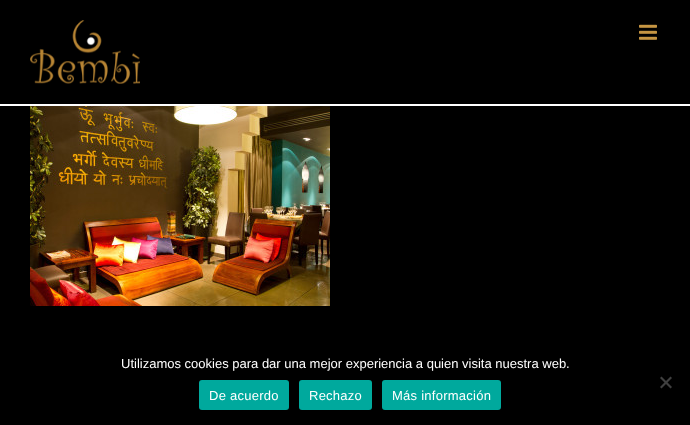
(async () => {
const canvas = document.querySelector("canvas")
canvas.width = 690
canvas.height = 425
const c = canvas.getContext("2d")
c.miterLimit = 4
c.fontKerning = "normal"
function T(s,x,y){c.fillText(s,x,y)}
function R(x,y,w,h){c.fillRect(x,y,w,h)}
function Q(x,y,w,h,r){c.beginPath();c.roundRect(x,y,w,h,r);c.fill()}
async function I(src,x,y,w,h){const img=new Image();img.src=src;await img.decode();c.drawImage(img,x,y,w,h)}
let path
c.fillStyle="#000"
R(0,0,690,425)
c.fillStyle="#fff"
R(0,104,690,2)
await I("1.png",30,20,110,64)
await I("2.png",639,24,18,16)
await I("3.png",30,106,300,200)
c.font="13px Liberation Sans"
T("Utilizamos cookies para dar una mejor experiencia a quien visita nuestra web.",121,368)
c.fillStyle="#404040"
path = new Path2D("M670.5 376.5l1.5 1.5l-10.5 10.5l-1.5-1.5z")
c.fill(path)
path = new Path2D("M660 378l1.5-1.5l10.5 10.5l-1.5 1.5z")
c.fill(path)
c.fillStyle="#00a99d"
Q(199,380,90,30,3)
c.letterSpacing="0.25px"
c.fillStyle="#fff"
T("De acuerdo",209,400)
c.fillStyle="#00a99d"
Q(299,380,73,30,3)
c.fillStyle="#fff"
T("Rechazo",309,400)
c.fillStyle="#00a99d"
Q(382,380,119,30,3)
c.fillStyle="#fff"
T("Más información",392,400)
})()
